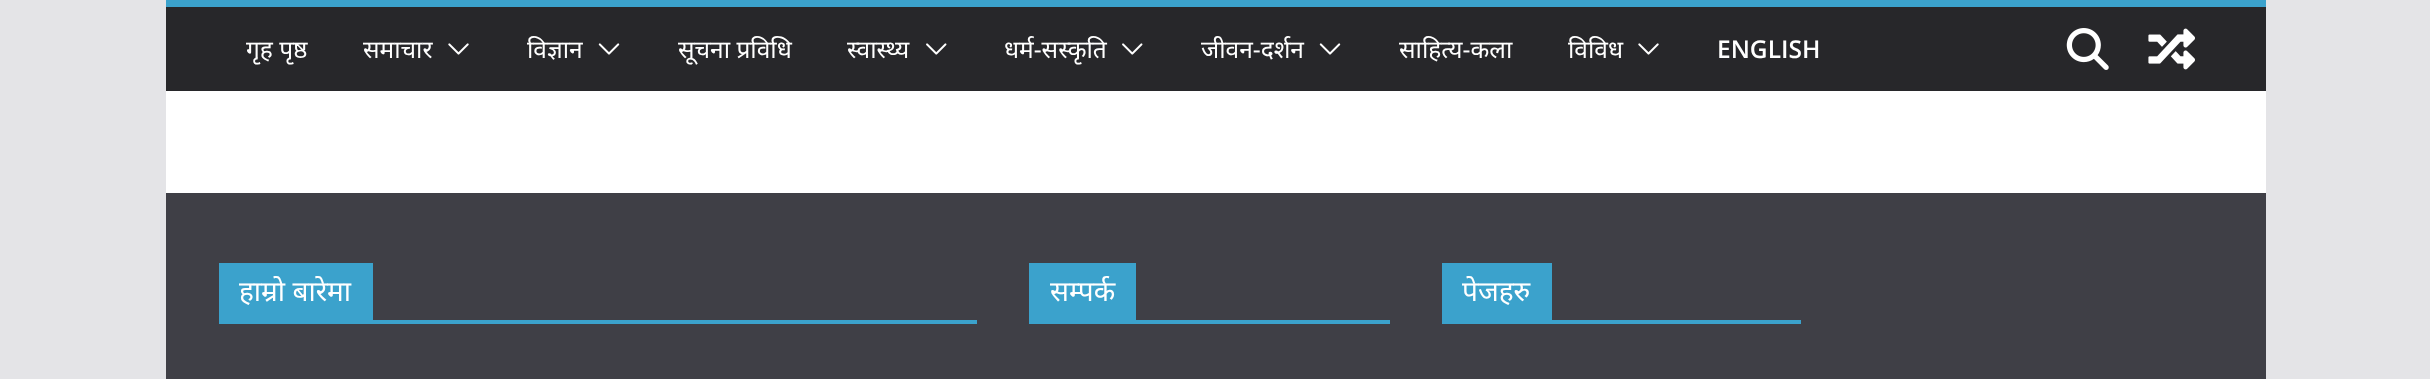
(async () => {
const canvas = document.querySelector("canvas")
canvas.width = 2430
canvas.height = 379
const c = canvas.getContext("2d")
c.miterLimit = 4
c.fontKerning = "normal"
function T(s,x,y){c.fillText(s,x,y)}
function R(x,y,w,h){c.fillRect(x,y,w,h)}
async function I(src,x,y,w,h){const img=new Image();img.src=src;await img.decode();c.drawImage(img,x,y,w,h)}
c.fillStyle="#e4e4e7"
R(0,0,2430,379)
c.fillStyle="#27272a"
R(166,7,2100,84)
c.fillStyle="#3ba2cc"
R(166,0,2100,7)
c.font="24.5px Noto Sans"
c.fillStyle="#fff"
T("गृह पृष्ठ",246,58)
T("समाचार",363,58)
await I("1.png",448,43,21,12)
T("विज्ञान",527,58)
await I("2.png",598,43,22,12)
T("सूचना प्रविधि",678,58)
T("स्वास्थ्य",847,58)
await I("3.png",926,43,21,12)
T("धर्म-सस्कृति",1004,58)
await I("3.png",1122,43,21,12)
T("जीवन-दर्शन",1201,58)
await I("2.png",1319,43,22,12)
T("साहित्य-कला",1399,58)
T("विविध",1568,58)
await I("1.png",1638,43,21,12)
c.font="600 24.5px Open Sans"
T("ENGLISH",1717,58)
await I("4.png",2066,28,43,42)
await I("5.png",2148,28,47,42)
R(166,91,2100,102)
c.fillStyle="#3f3f46"
R(166,193,2100,186)
c.fillStyle="#3ba2cc"
R(219,320,758,4)
R(219,263,154,57)
c.font="28px Noto Sans"
c.fillStyle="#fff"
T("हाम्रो बारेमा",239,301)
c.fillStyle="#3ba2cc"
R(1029,320,361,4)
R(1029,263,107,57)
c.fillStyle="#fff"
T("सम्पर्क",1050,301)
c.fillStyle="#3ba2cc"
R(1442,320,359,4)
R(1442,263,110,57)
c.fillStyle="#fff"
T("पेजहरु",1462,301)
})()
